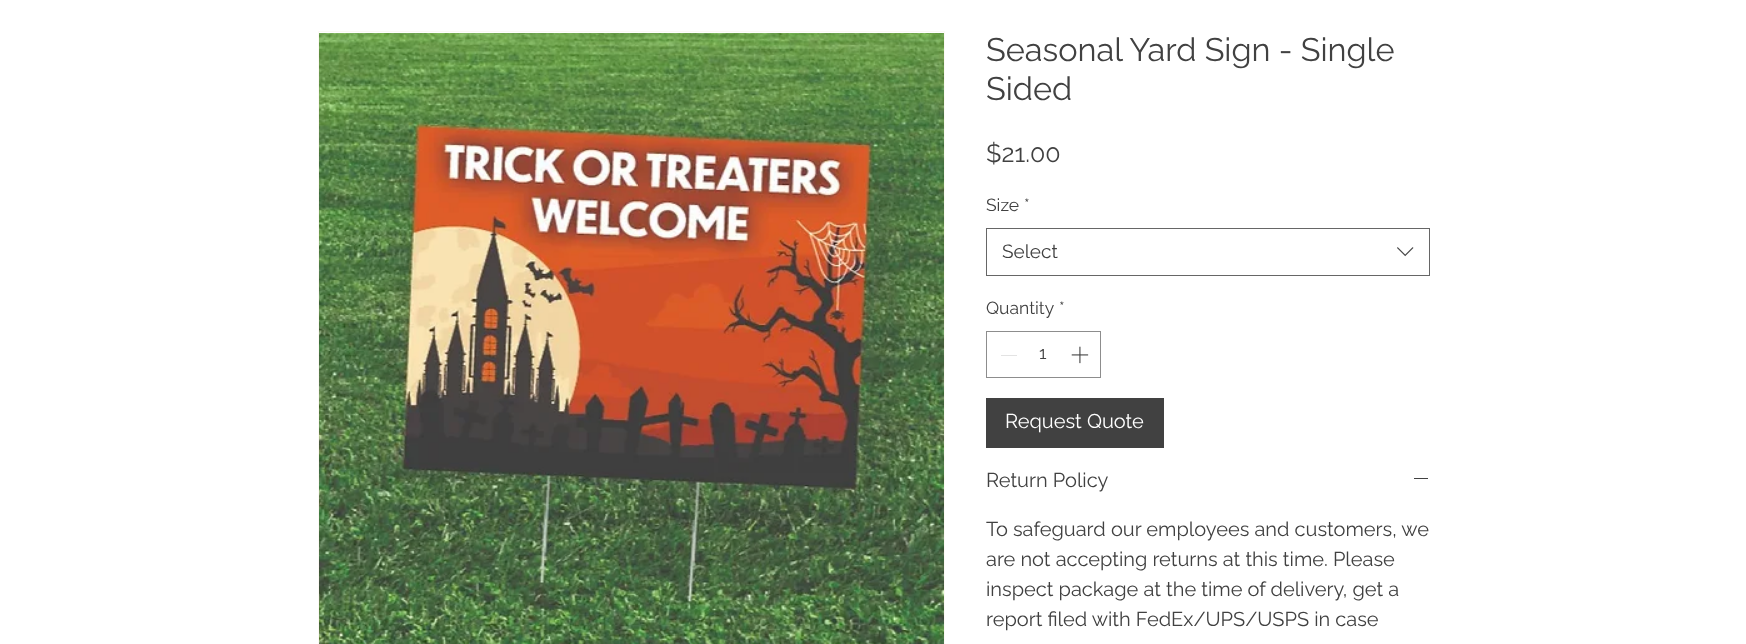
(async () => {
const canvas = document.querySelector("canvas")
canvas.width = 1746
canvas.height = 644
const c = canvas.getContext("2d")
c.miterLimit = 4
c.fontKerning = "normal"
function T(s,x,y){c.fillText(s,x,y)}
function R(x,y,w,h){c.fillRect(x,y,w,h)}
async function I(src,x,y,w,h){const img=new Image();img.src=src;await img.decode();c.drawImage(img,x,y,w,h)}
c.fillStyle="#fff"
R(0,0,1746,644)
c.strokeStyle="#fcf9f4"
c.strokeRect(318.5,31.5,626,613)
await I("1.png",319,33,625,611)
c.font="32.5px Raleway"
c.fillStyle="#414141"
T("Seasonal Yard Sign - Single",986,61)
T("Sided",986,100)
c.font="25px Raleway"
T("$21.00",986,162)
c.font="17.5px Raleway"
T("Size",986,211)
T("*",1024,211)
c.strokeStyle="#666"
c.strokeRect(986.5,228.5,443,47)
c.font="19px Raleway"
T("Select",1002,258)
await I("2.png",1397,247,17,10)
c.font="17.5px Raleway"
T("Quantity",986,314)
T("*",1059,314)
c.strokeStyle="#8d8d8d"
c.strokeRect(986.5,331.5,114,46)
c.fillStyle="#e3e3e3"
R(1001,355,16,1)
c.fillStyle="#414141"
T("1",1039,359)
await I("3.png",1071,346,18,18)
c.font="20px Raleway"
T("Return Policy",986,487)
R(1414,478,14,1)
T("To safeguard our employees and customers, we",986,536)
T("are not accepting returns at this time. Please",986,566)
T("inspect package at the time of delivery, get a",986,596)
T("report filed with FedEx/UPS/USPS in case",986,626)
R(986,398,178,50)
c.fillStyle="#fff"
T("Request Quote",1005,428)
})()
